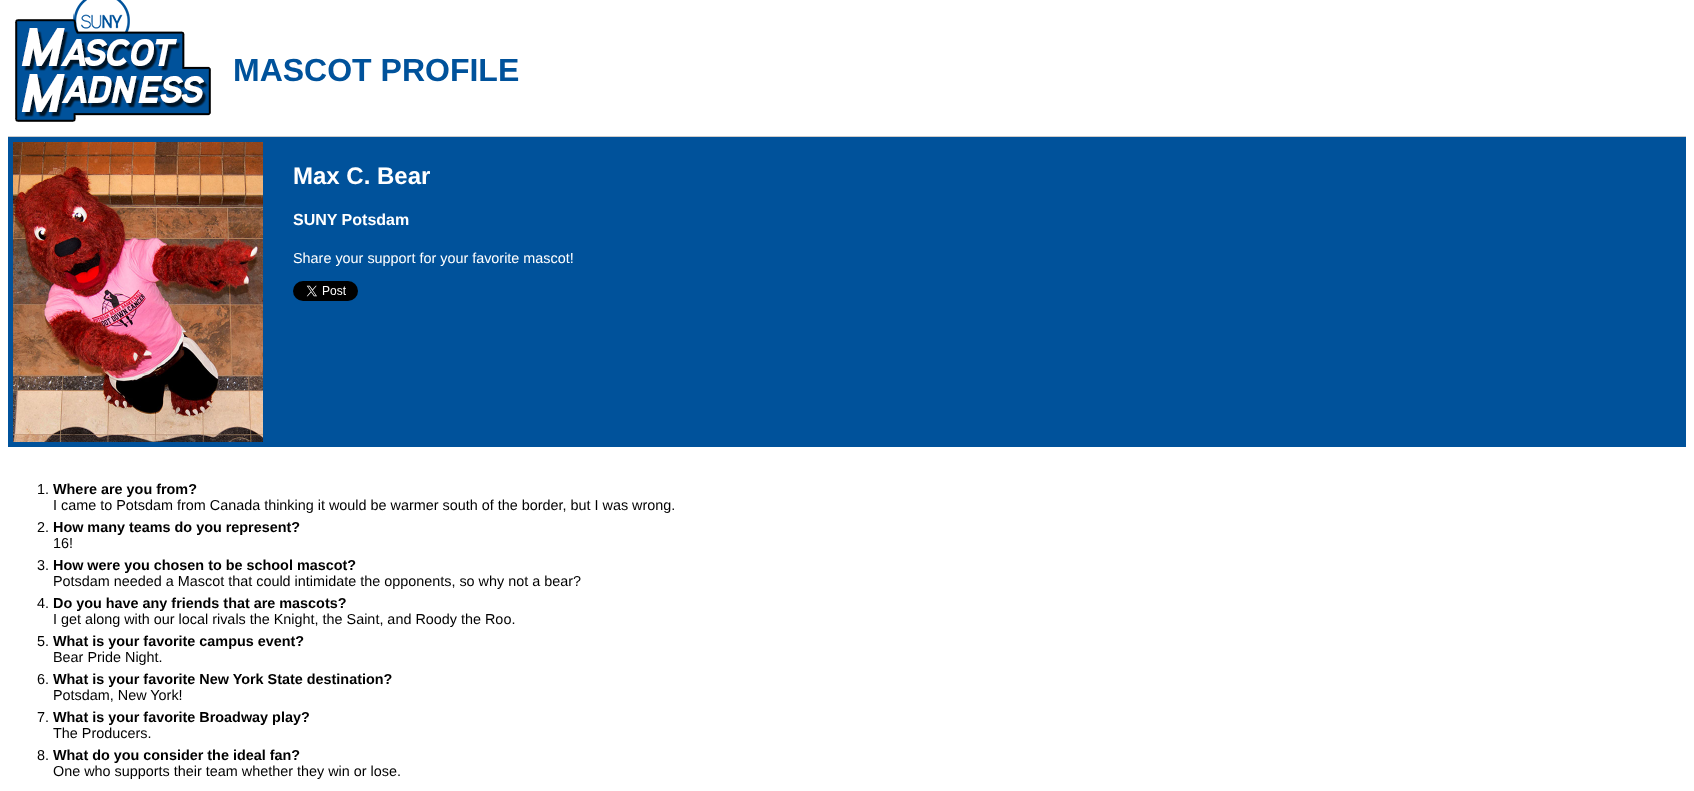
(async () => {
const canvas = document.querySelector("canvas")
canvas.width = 1694
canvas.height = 791
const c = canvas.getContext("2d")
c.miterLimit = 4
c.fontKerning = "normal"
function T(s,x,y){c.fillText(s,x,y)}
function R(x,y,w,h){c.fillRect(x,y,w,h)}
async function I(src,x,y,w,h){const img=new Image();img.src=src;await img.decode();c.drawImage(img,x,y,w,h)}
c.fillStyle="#fff"
R(0,0,1694,791)
c.fillStyle="#ccc"
R(8,136,1678,1)
await I("1.png",15,0,196,122)
c.font="bold 32px Liberation Sans"
c.fillStyle="#00529b"
T("MASCOT PROFILE",233,81)
R(8,137,1678,310)
await I("2.png",13,142,250,300)
c.font="bold 24px Liberation Sans"
c.fillStyle="#fff"
T("Max C. Bear",293,184)
c.font="bold 16px Liberation Sans"
T("SUNY Potsdam",293,225)
c.font="14.4px Liberation Sans"
T("Share your support for your favorite mascot!",293,263)
await I("3.png",293,281,65,20)
c.fillStyle="#000"
T("1.",37,494)
c.font="bold 14.4px Liberation Sans"
T("Where are you from?",53,494)
c.font="14.4px Liberation Sans"
T("I came to Potsdam from Canada thinking it would be warmer south of the border, but I was wrong.",53,510)
T("2.",37,532)
c.font="bold 14.4px Liberation Sans"
T("How many teams do you represent?",53,532)
c.font="14.4px Liberation Sans"
T("16!",53,548)
T("3.",37,570)
c.font="bold 14.4px Liberation Sans"
T("How were you chosen to be school mascot?",53,570)
c.font="14.4px Liberation Sans"
T("Potsdam needed a Mascot that could intimidate the opponents, so why not a bear?",53,586)
T("4.",37,608)
c.font="bold 14.4px Liberation Sans"
T("Do you have any friends that are mascots?",53,608)
c.font="14.4px Liberation Sans"
T("I get along with our local rivals the Knight, the Saint, and Roody the Roo.",53,624)
T("5.",37,646)
c.font="bold 14.4px Liberation Sans"
T("What is your favorite campus event?",53,646)
c.font="14.4px Liberation Sans"
T("Bear Pride Night.",53,662)
T("6.",37,684)
c.font="bold 14.4px Liberation Sans"
T("What is your favorite New York State destination?",53,684)
c.font="14.4px Liberation Sans"
T("Potsdam, New York!",53,700)
T("7.",37,722)
c.font="bold 14.4px Liberation Sans"
T("What is your favorite Broadway play?",53,722)
c.font="14.4px Liberation Sans"
T("The Producers.",53,738)
T("8.",37,760)
c.font="bold 14.4px Liberation Sans"
T("What do you consider the ideal fan?",53,760)
c.font="14.4px Liberation Sans"
T("One who supports their team whether they win or lose.",53,776)
})()
